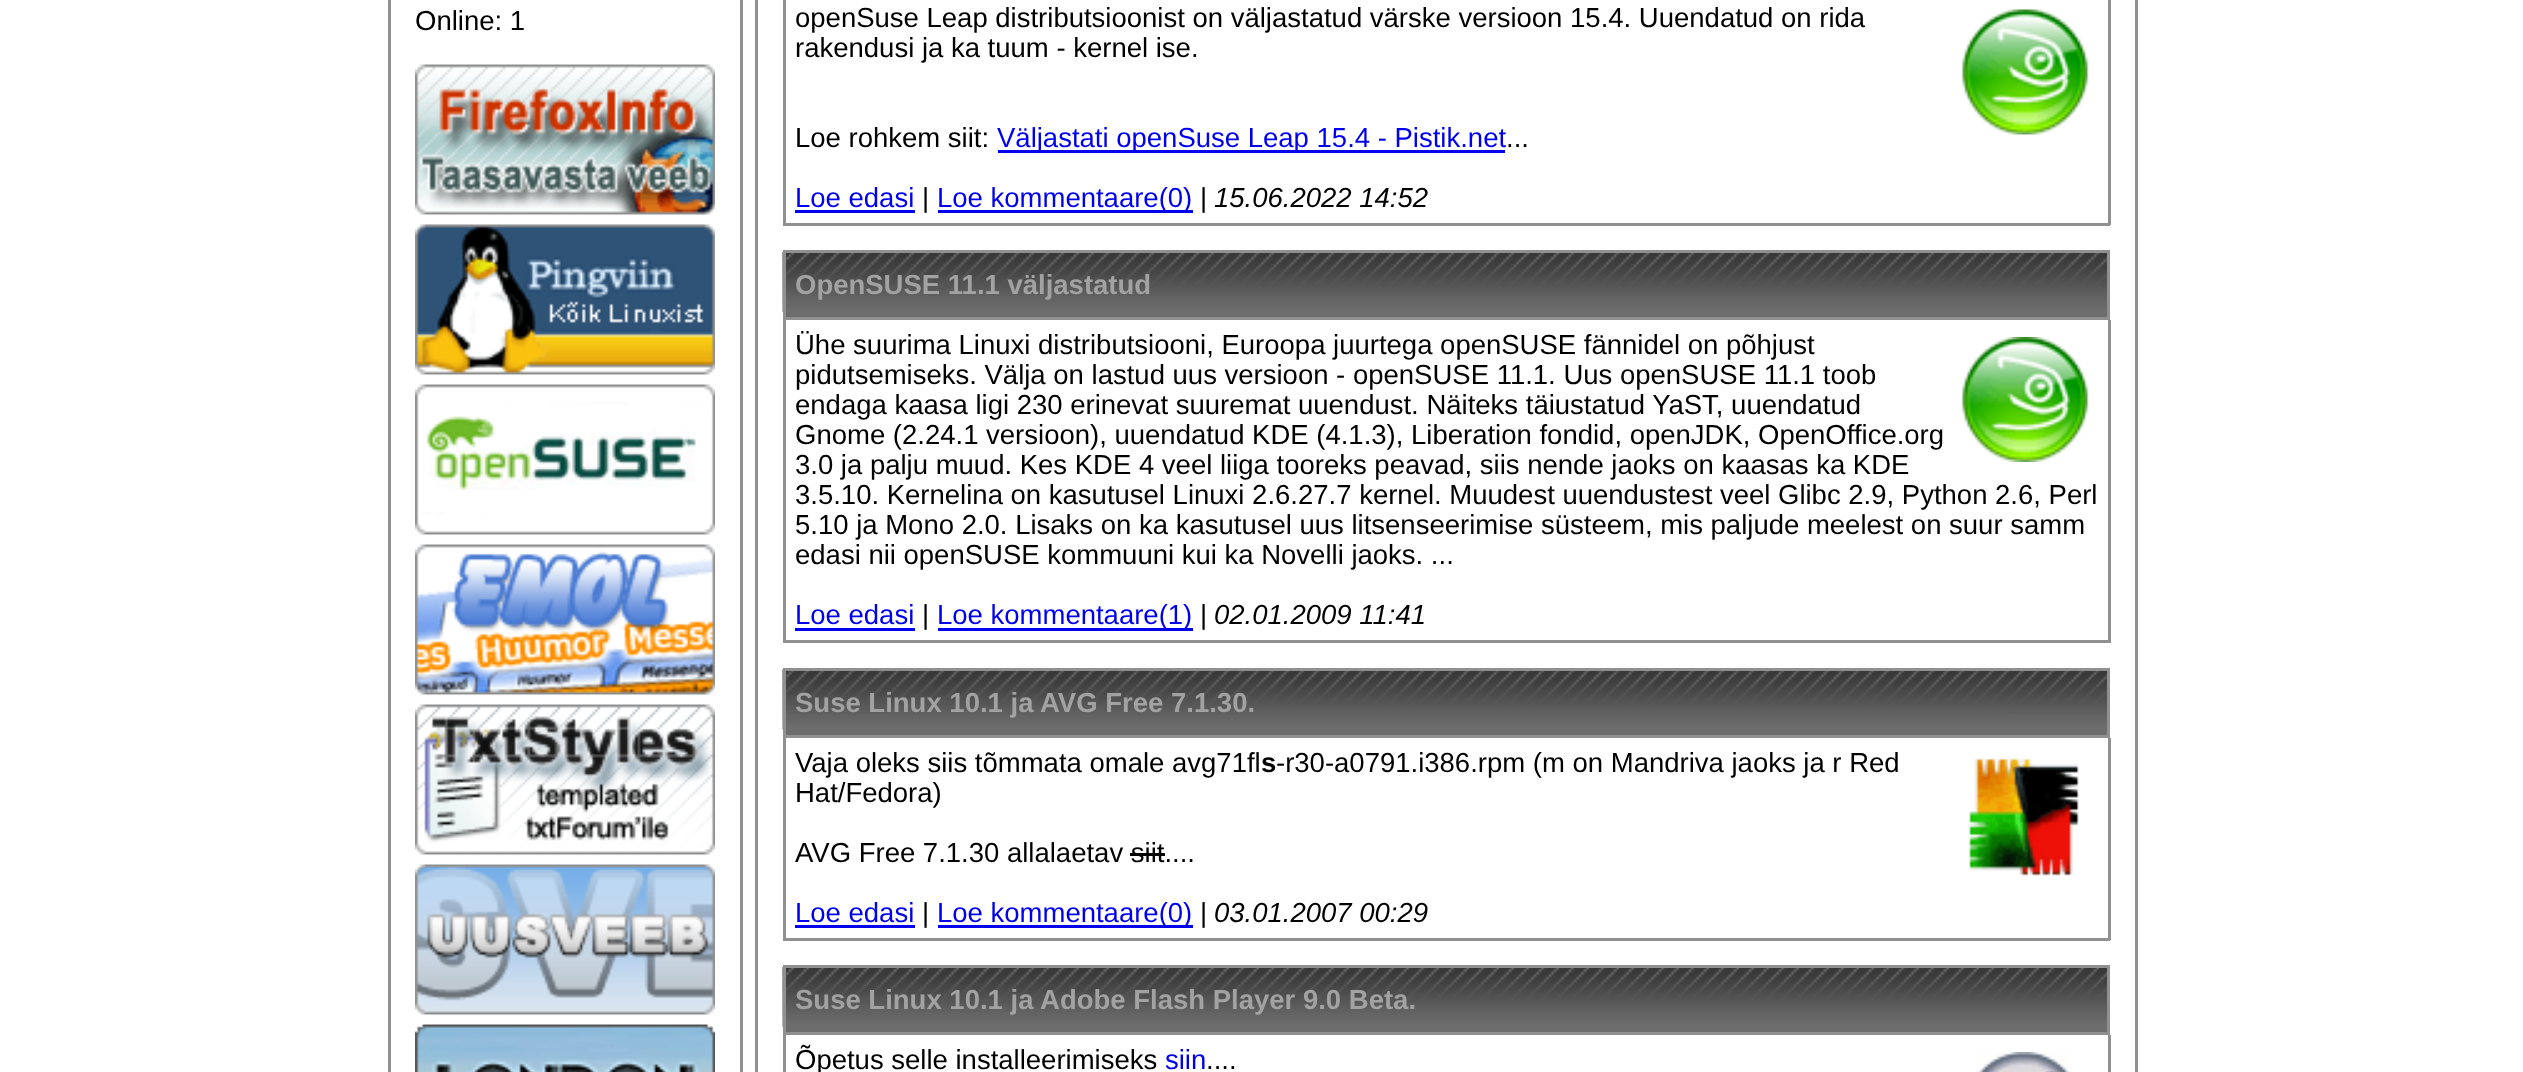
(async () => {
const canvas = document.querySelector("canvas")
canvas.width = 2523
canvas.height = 1072
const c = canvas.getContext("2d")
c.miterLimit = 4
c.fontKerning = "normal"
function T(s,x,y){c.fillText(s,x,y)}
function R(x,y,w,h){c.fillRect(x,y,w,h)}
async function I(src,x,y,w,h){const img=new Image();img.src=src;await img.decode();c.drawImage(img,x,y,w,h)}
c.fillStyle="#fff"
R(0,0,2523,1072)
c.strokeStyle="#909090"
c.lineWidth=3
c.strokeRect(389.5,-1.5,352,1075)
c.font="27.5px Liberation Sans"
c.fillStyle="#000"
T("Online: 1",415,30)
await I("1.png",415,64,300,151)
await I("2.png",415,224,300,151)
await I("3.png",415,384,300,151)
await I("4.png",415,544,300,151)
await I("5.png",415,704,300,151)
await I("6.png",415,864,300,151)
await I("7.png",415,1024,300,48)
c.strokeRect(756.5,-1.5,1380,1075)
c.fillStyle="#909090"
R(2108,0,3,225)
R(783,223,1327,3)
R(783,0,3,225)
c.fillStyle="#000"
T("openSuse Leap distributsioonist on väljastatud värske versioon 15.4. Uuendatud on rida",795,27)
await I("8.png",1961,9,128,126)
T("rakendusi ja ka tuum - kernel ise.",795,57)
T("Loe rohkem siit:",795,147)
c.fillStyle="#00e"
R(998,150,507,3)
T("Väljastati openSuse Leap 15.4 - Pistik.net",997,147)
c.fillStyle="#000"
T("...",1506,147)
c.fillStyle="#00e"
T("Loe edasi",795,207)
R(795,210,120,3)
c.fillStyle="#000"
T("|",922,207)
c.fillStyle="#00e"
R(938,210,255,3)
T("Loe kommentaare(0)",937,207)
c.fillStyle="#000"
T("|",1200,207)
c.font="italic 27.5px Liberation Sans"
T("15.06.2022 14:52",1214,207)
c.fillStyle="#6d6d6d"
R(786,312,1321,5)
await I("9.png",782,252,1325,60)
c.strokeRect(784.5,251.5,1324,67)
c.font="bold 27.5px Liberation Sans"
c.fillStyle="#a2a2a2"
T("OpenSUSE 11.1 väljastatud",795,294)
c.fillStyle="#909090"
R(2108,320,3,323)
R(783,640,1327,3)
R(783,320,3,323)
c.font="27.5px Liberation Sans"
c.fillStyle="#000"
T("Ühe suurima Linuxi distributsiooni, Euroopa juurtega openSUSE fännidel on põhjust",795,354)
await I("10.png",1961,337,128,125)
T("pidutsemiseks. Välja on lastud uus versioon - openSUSE 11.1. Uus openSUSE 11.1 toob",795,384)
T("endaga kaasa ligi 230 erinevat suuremat uuendust. Näiteks täiustatud YaST, uuendatud",795,414)
T("Gnome (2.24.1 versioon), uuendatud KDE (4.1.3), Liberation fondid, openJDK, OpenOffice.org",795,444)
T("3.0 ja palju muud. Kes KDE 4 veel liiga tooreks peavad, siis nende jaoks on kaasas ka KDE",795,474)
T("3.5.10. Kernelina on kasutusel Linuxi 2.6.27.7 kernel. Muudest uuendustest veel Glibc 2.9, Python 2.6, Perl",795,504)
T("5.10 ja Mono 2.0. Lisaks on ka kasutusel uus litsenseerimise süsteem, mis paljude meelest on suur samm",795,534)
T("edasi nii openSUSE kommuuni kui ka Novelli jaoks. ...",795,564)
c.fillStyle="#00e"
T("Loe edasi",795,624)
R(795,628,120,3)
c.fillStyle="#000"
T("|",922,624)
c.fillStyle="#00e"
R(938,628,255,3)
T("Loe kommentaare(1)",937,624)
c.fillStyle="#000"
T("|",1200,624)
c.font="italic 27.5px Liberation Sans"
T("02.01.2009 11:41",1214,624)
c.fillStyle="#6d6d6d"
R(786,729,1321,6)
await I("11.png",782,669,1325,61)
c.strokeRect(784.5,669.5,1324,67)
c.font="bold 27.5px Liberation Sans"
c.fillStyle="#a2a2a2"
T("Suse Linux 10.1 ja AVG Free 7.1.30.",795,712)
c.fillStyle="#909090"
R(2108,738,3,202)
R(783,938,1327,3)
R(783,738,3,202)
c.font="27.5px Liberation Sans"
c.fillStyle="#000"
T("Vaja oleks siis tõmmata omale avg71fl",795,772)
c.font="bold 27.5px Liberation Sans"
T("s",1261,772)
c.font="27.5px Liberation Sans"
T("-r30-a0791.i386.rpm (m on Mandriva jaoks ja r Red",1276,772)
await I("12.png",1969,758,110,118)
T("Hat/Fedora)",795,802)
T("AVG Free 7.1.30 allalaetav siit....",795,862)
R(1130,853,35,3)
c.fillStyle="#00e"
T("Loe edasi",795,922)
R(795,925,120,3)
c.fillStyle="#000"
T("|",922,922)
c.fillStyle="#00e"
R(938,925,255,3)
T("Loe kommentaare(0)",937,922)
c.fillStyle="#000"
T("|",1200,922)
c.font="italic 27.5px Liberation Sans"
T("03.01.2007 00:29",1214,922)
c.fillStyle="#6d6d6d"
R(786,1027,1321,5)
await I("13.png",782,967,1325,60)
c.strokeRect(784.5,966.5,1324,67)
c.font="bold 27.5px Liberation Sans"
c.fillStyle="#a2a2a2"
T("Suse Linux 10.1 ja Adobe Flash Player 9.0 Beta.",795,1009)
c.fillStyle="#909090"
R(2108,1035,3,37)
R(783,1035,3,37)
c.font="27.5px Liberation Sans"
c.fillStyle="#000"
T("Õpetus selle installeerimiseks",795,1069)
c.fillStyle="#00e"
T("siin",1165,1069)
c.fillStyle="#000"
T("....",1206,1069)
await I("14.png",1976,1052,95,20)
})()
